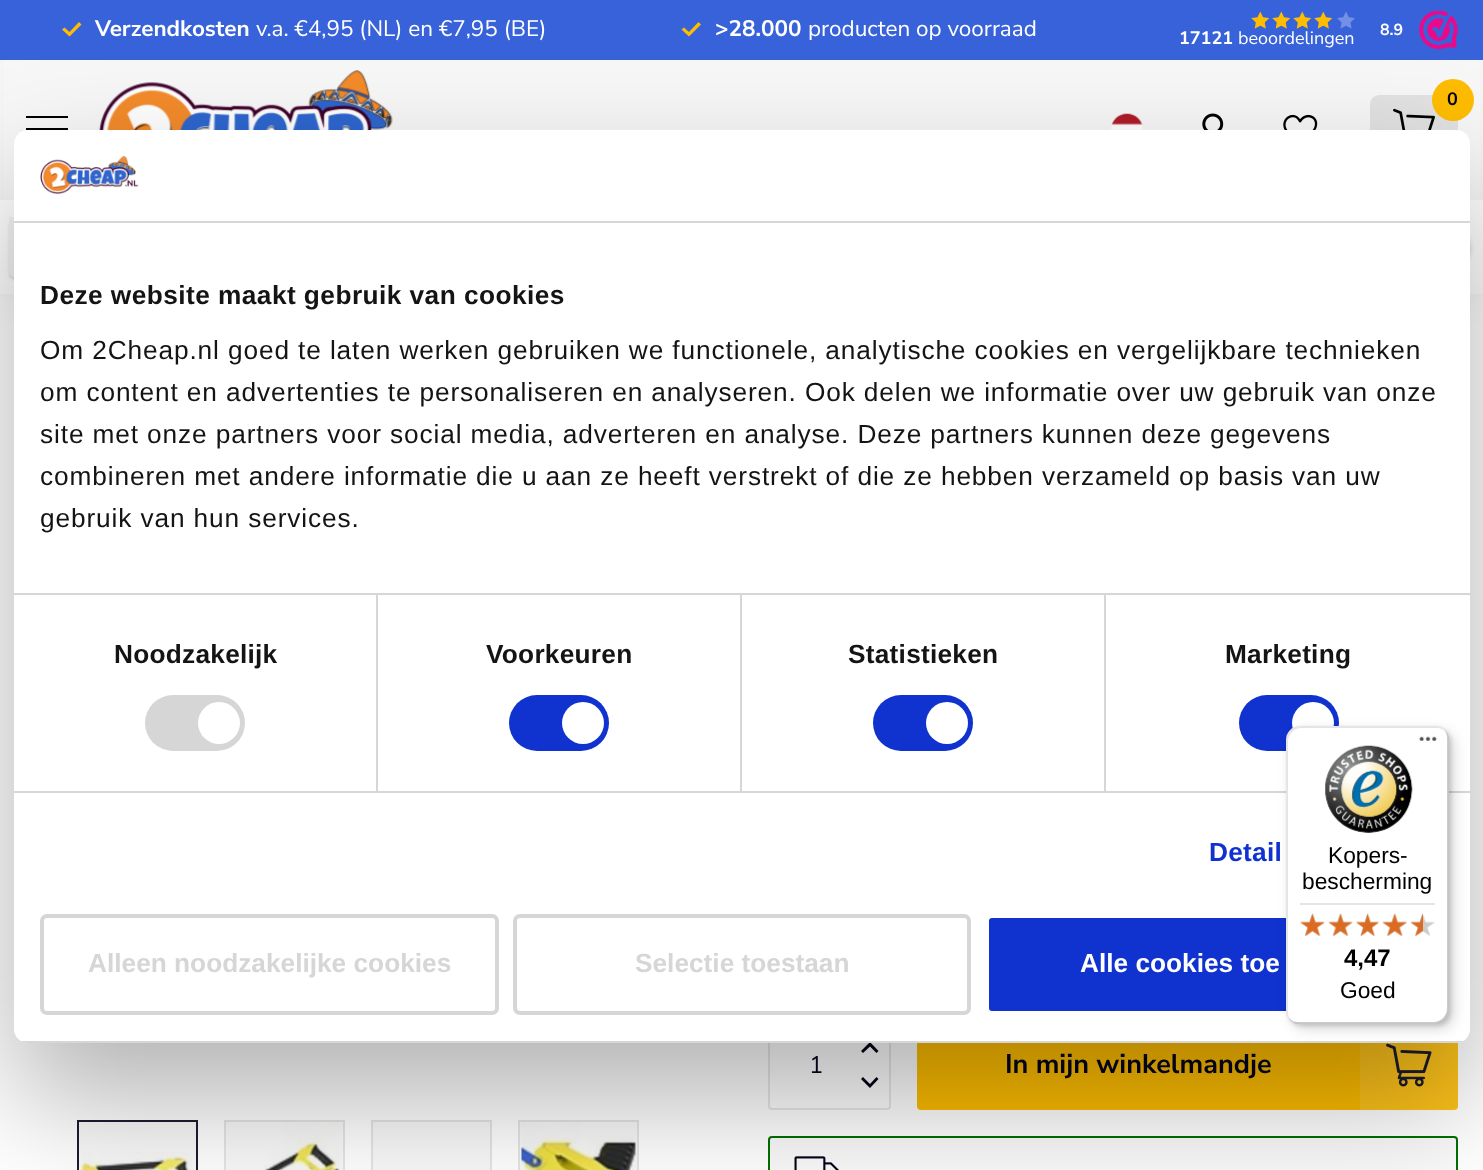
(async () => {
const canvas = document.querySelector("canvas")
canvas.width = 1483
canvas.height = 1170
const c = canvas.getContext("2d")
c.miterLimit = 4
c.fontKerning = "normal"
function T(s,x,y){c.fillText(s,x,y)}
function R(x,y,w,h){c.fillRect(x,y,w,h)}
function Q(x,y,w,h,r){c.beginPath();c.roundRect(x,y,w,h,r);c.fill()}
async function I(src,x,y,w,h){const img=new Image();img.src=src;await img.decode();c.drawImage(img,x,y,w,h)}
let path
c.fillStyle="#fff"
R(0,0,1483,1170)
c.fillStyle="#00000012"
c.filter="blur(17.5px)"
c.beginPath()
c.rect(0,0,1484,294)
c.fill()
c.filter="none"
c.fillStyle="#f7f7f7"
R(4,60,1476,140)
c.fillStyle="#3862da"
R(0,0,1483,60)
c.fillStyle="#febd00"
path = new Path2D("M69.5 36.5l-7.5-7l2.5-2l5 4.5l9.5-10l2.5 2.5z")
c.fill(path)
c.font="bold 22.5px Nunito Sans"
c.fillStyle="#fff"
T("Verzendkosten",95,36)
c.font="22.5px Nunito Sans"
T("v.a. €4,95 (NL) en €7,95 (BE)",256,36)
c.fillStyle="#febd00"
path = new Path2D("M689 36.5l-7.5-7l2.5-2l5 4.5l9.5-10l2.5 2.5z")
c.fill(path)
c.font="bold 22.5px Nunito Sans"
c.fillStyle="#fff"
T(">28.000",715,36)
c.font="22.5px Nunito Sans"
T("producten op voorraad",808,36)
c.font="bold 16px Nunito Sans"
T("8.9",1380,35)
await I("1.png",1251,11,19,18)
await I("1.png",1272,11,19,18)
await I("1.png",1293,11,19,18)
await I("1.png",1314,11,19,18)
await I("2.png",1337,12,18,17)
c.font="bold 18px Nunito Sans"
T("17121",1179,44)
c.font="18px Nunito Sans"
T("beoordelingen",1238,44)
await I("3.png",1419,11,39,38)
c.fillStyle="#000"
R(26,116,42,2)
R(26,128,42,2)
await I("4.png",99,70,294,60)
c.fillStyle="#e2e2e2"
Q(1370,95,88,70,9)
await I("5.png",1393,108,42,22)
c.fillStyle="#febd00"
c.beginPath()
c.arc(1453,100,21,0,7)
c.fill()
c.font="bold 18px Nunito Sans"
c.fillStyle="#03031a"
T("0",1447,105)
await I("6.png",1111,113,32,17)
await I("7.png",1202,113,22,17)
await I("8.png",1283,114,35,16)
c.fillStyle="#fff"
R(0,200,1483,94)
c.save()
path = new Path2D("M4 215h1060v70h-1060zm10 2h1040c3 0 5 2 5 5v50c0 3-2 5-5 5h-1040c-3 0-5-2-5-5v-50c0-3 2-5 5-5z")
c.clip(path,"evenodd")
c.fillStyle="#9b9b9bbf"
c.filter="blur(2px)"
c.beginPath()
c.roundRect(11,222,1046,56,4)
c.fill()
c.filter="none"
c.restore()
c.fillStyle="#3333330d"
R(9,217,5,60)
c.fillStyle="#00000033"
c.filter="blur(2.5px)"
c.beginPath()
c.roundRect(1435,231,35,35,17.5)
c.fill()
c.filter="none"
c.beginPath()
c.roundRect(769,1023,121,86,3)
c.strokeStyle="#e8e8e8"
c.lineWidth=2
c.stroke()
c.fillStyle="#03031a"
path = new Path2D("M861 1051l2 2l7-6.5l6.5 6.5l2-2l-8.5-9zm0 28l2-2l7 7l6.5-7l2 2l-8.5 9z")
c.fill(path)
c.fillStyle="#febd00"
Q(917,1022,541,88,4)
await I("22.png",1386,1043,46,44)
c.fillStyle="#ffffff1a"
R(1360,1042,98,68)
c.fillStyle="#fafafa"
c.beginPath()
c.roundRect(769,1137,688,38,3)
c.fill()
c.strokeStyle="#007000"
c.stroke()
await I("23.png",794,1156,45,14)
c.fillStyle="#f9f9f9"
c.beginPath()
c.rect(78,1121,119,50)
c.fill()
c.strokeStyle="#1c1c30"
c.stroke()
await I("24.png",81,1152,111,18)
c.beginPath()
c.rect(225,1121,119,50)
c.fill()
c.strokeStyle="#e5e5e8"
c.stroke()
await I("25.png",264,1123,77,47)
c.strokeRect(372,1121,119,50)
R(373,1122,117,48)
c.beginPath()
c.rect(519,1121,119,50)
c.fill()
c.stroke()
await I("26.png",521,1123,115,47)
c.fillStyle="#0000004d"
c.filter="blur(59.5px)"
c.beginPath()
c.roundRect(14,186,1456,913,14)
c.fill()
c.filter="none"
c.fillStyle="#fff"
Q(14,130,1456,913,14)
c.fillStyle="#d6d6d6"
R(14,221,1456,2)
await I("9.png",40,155,99,40)
R(14,593,1456,2)
c.letterSpacing="0.45px"
c.font="bold 26.25px Liberation Sans"
c.fillStyle="#141414"
T("Deze website maakt gebruik van cookies",40,304)
c.letterSpacing="0.88px"
c.font="26.25px Liberation Sans"
T("Om 2Cheap.nl goed te laten werken gebruiken we functionele, analytische cookies en vergelijkbare technieken",40,359)
T("om content en advertenties te personaliseren en analyseren. Ook delen we informatie over uw gebruik van onze",40,401)
T("site met onze partners voor social media, adverteren en analyse. Deze partners kunnen deze gegevens",40,443)
T("combineren met andere informatie die u aan ze heeft verstrekt of die ze hebben verzameld op basis van uw",40,485)
T("gebruik van hun services.",40,527)
c.fillStyle="#d6d6d6"
R(14,791,1456,2)
R(376,595,2,196)
c.letterSpacing="0.25px"
c.font="bold 26.25px Liberation Sans"
c.fillStyle="#141414"
T("Noodzakelijk",114,663)
c.fillStyle="#d6d6d6"
Q(145,695,100,56,28)
c.fillStyle="#fff"
c.beginPath()
c.arc(219,723,21,0,7)
c.fill()
c.fillStyle="#d6d6d6"
R(740,595,2,196)
c.fillStyle="#141414"
T("Voorkeuren",486,663)
c.fillStyle="#1032cf"
Q(509,695,100,56,28)
c.fillStyle="#fff"
c.beginPath()
c.arc(583,723,21,0,7)
c.fill()
c.fillStyle="#d6d6d6"
R(1104,595,2,196)
c.fillStyle="#141414"
T("Statistieken",848,663)
c.fillStyle="#1032cf"
Q(873,695,100,56,28)
c.fillStyle="#fff"
c.beginPath()
c.arc(947,723,21,0,7)
c.fill()
c.fillStyle="#141414"
T("Marketing",1225,663)
c.fillStyle="#1032cf"
Q(1239,695,100,56,28)
c.fillStyle="#fff"
c.beginPath()
c.arc(1313,723,21,0,7)
c.fill()
c.fillStyle="#1032cf"
T("Detail",1209,861)
c.save()
c.beginPath()
c.roundRect(14,130,1456,913,14)
c.clip()
c.fillStyle="#d6d6d6"
R(14,1041,1456,2)
c.restore()
c.beginPath()
c.roundRect(42,916,455,97,5)
c.strokeStyle="#d6d6d6"
c.lineWidth=4
c.stroke()
c.letterSpacing="0px"
c.fillStyle="#d6d6d6"
T("Alleen noodzakelijke cookies",88,972)
c.beginPath()
c.roundRect(515,916,454,97,5)
c.stroke()
T("Selectie toestaan",635,972)
c.fillStyle="#1032cf"
c.beginPath()
c.roundRect(987,916,455,97,5)
c.fill()
c.strokeStyle="#fff"
c.stroke()
c.fillStyle="#fff"
T("Alle cookies toe",1080,972)
c.fillStyle="#00000026"
c.filter="blur(7px)"
c.beginPath()
c.roundRect(1292,732,162,297,14)
c.fill()
c.filter="none"
c.filter="blur(2px)"
c.beginPath()
c.roundRect(1288,728,163,298,14)
c.fill()
c.filter="none"
c.fillStyle="#fff"
Q(1286,726,163,298,14)
c.fillStyle="#0000001a"
path = new Path2D("M1302 728h135c3 0 7 1 9 4c-2-4-6-6-11-6h-135c-8 0-14 6-14 14v270c0 5 2 9 6 11c-3-2-4-6-4-9v-270c0-8 6-14 14-14z")
c.fill(path)
c.fillStyle="#00000033"
path = new Path2D("M1289 1018c2 4 6 6 11 6h135c8 0 14-6 14-14v-270c0-5-2-9-6-11c3 2 4 6 4 9v270c0 8-6 14-14 14h-135c-3 0-7-1-9-4z")
c.fill(path)
c.fillStyle="#32323233"
path = new Path2D("M1289 1018c2 4 6 6 11 6h135c8 0 14-6 14-14v-270c0-4-1-7-4-9c2 2 3 5 3 8v270c0 7-6 14-14 14h-135c-4 0-8-2-10-5z")
c.fill(path)
c.fillStyle="#ffffff4d"
path = new Path2D("M1289 1019c2 3 6 5 11 5h135c8 0 14-6 14-14v-270c0-5-2-9-5-11c2 3 4 6 4 10v270c0 8-6 14-14 14h-135c-4 0-7-2-10-4z")
c.fill(path)
await I("10.png",1419,736,18,5)
await I("11.png",1325,745,88,88)
c.font="22.75px Liberation Sans"
c.fillStyle="#000"
T("Kopers-",1328,863)
T("bescherming",1302,889)
c.fillStyle="#e5e5e5"
R(1300,903,135,2)
await I("12.png",1300,914,25,22)
await I("13.png",1328,914,25,22)
await I("14.png",1356,913,23,23)
await I("15.png",1382,913,25,23)
await I("16.png",1411,913,24,23)
await I("17.png",1300,913,25,24)
await I("18.png",1328,913,25,24)
await I("19.png",1356,913,23,24)
await I("20.png",1382,913,25,24)
await I("21.png",1410,913,13,24)
c.font="bold 24px Liberation Sans"
c.fillStyle="#000"
T("4,47",1344,966)
c.font="22.75px Liberation Sans"
T("Goed",1340,998)
c.font="24px Nunito Sans"
c.fillStyle="#03031a"
T("1",809,1073)
c.font="bold 27px Nunito Sans"
T("In mijn winkelmandje",1005,1073)
})()
